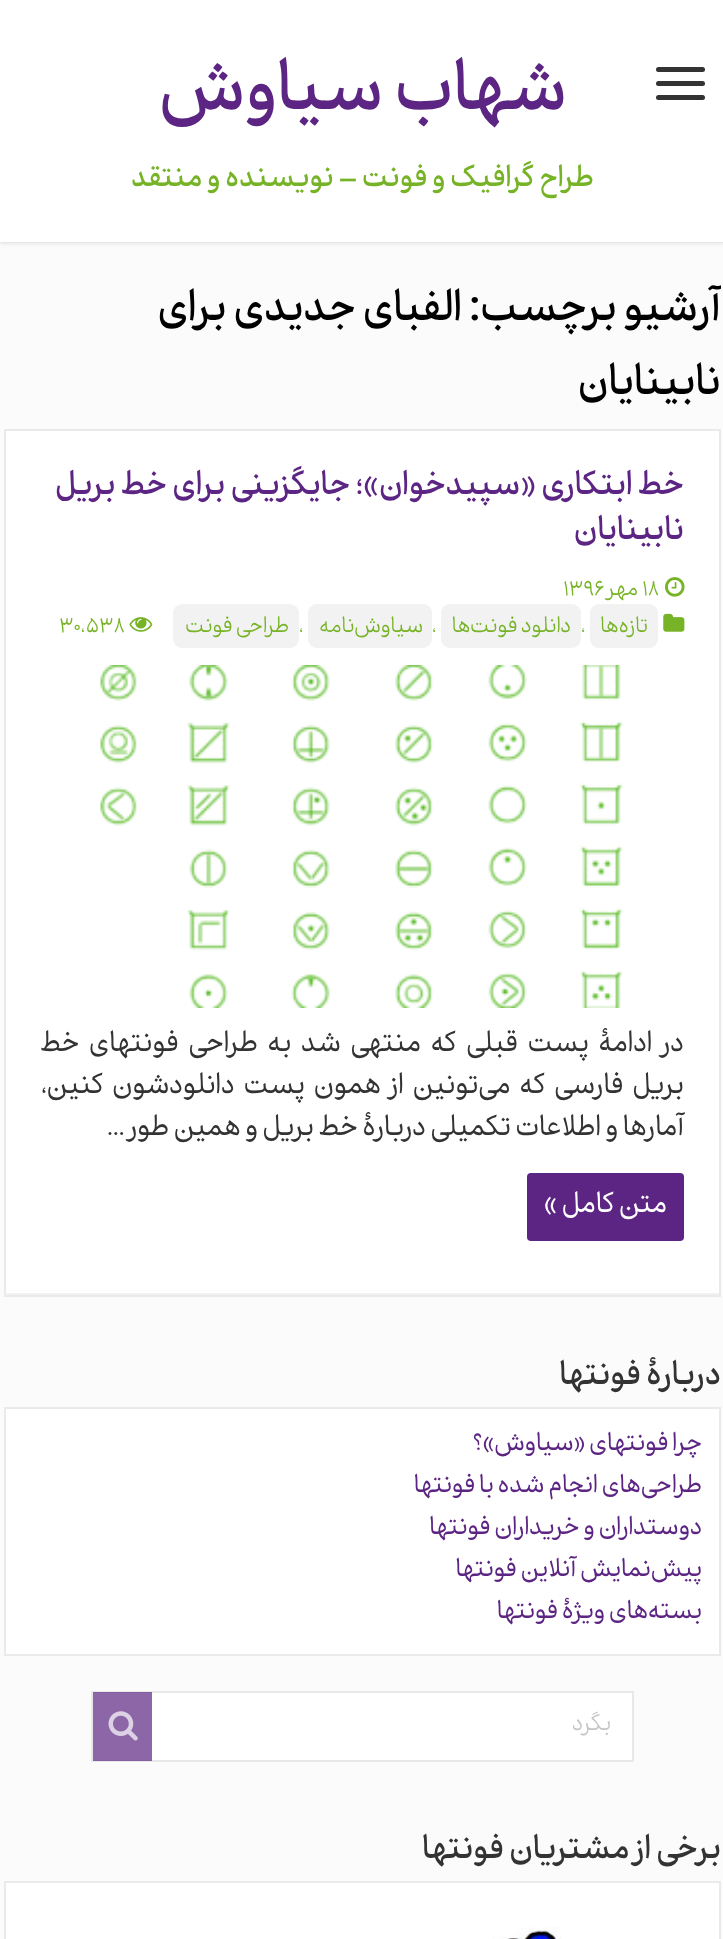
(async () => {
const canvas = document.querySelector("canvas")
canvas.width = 723
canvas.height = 1939
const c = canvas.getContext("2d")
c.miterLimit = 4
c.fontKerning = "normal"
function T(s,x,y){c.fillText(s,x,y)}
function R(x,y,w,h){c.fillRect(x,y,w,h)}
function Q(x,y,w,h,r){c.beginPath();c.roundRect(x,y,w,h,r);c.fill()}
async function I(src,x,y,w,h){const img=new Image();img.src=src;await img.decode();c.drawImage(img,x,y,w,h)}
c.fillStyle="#fbfbfb"
R(0,0,723,1939)
c.fillStyle="#cacaca"
c.filter="blur(2.5px)"
c.beginPath()
c.rect(0,0,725,242)
c.fill()
c.filter="none"
c.fillStyle="#fff"
R(0,0,723,242)
c.fillStyle="#333"
Q(656,67,49,5,2.5)
Q(656,81,49,5,2.5)
Q(656,95,49,5,2.5)
c.direction="rtl"
c.font="bold 74.5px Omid"
c.fillStyle="#5c2583"
T("شهاب سیاوش",567,109)
c.font="bold 31.5px Omid"
c.fillStyle="#76b326"
T("طراح گرافیک و فونت – نویسنده و منتقد",594,186)
c.save()
c.beginPath()
c.rect(4,271,717,158)
c.clip()
c.font="bold 45.5px Omid"
c.fillStyle="#000"
T("آرشیو برچسب:",721,320)
c.restore()
c.font="bold 45.5px Omid"
c.fillStyle="#000"
T("الفبای جدیدی برای",462,320)
T("نابینایان",721,394)
c.fillStyle="#fff"
R(6,431,713,862)
c.strokeStyle="#eaeaea"
c.lineWidth=2
c.strokeRect(5,430,715,866)
c.fillStyle="#f2f2f2"
R(5,1293,714,2)
c.font="bold 35px Omid"
c.fillStyle="#5c2583"
T("خط ابتکاری «سپیدخوان»؛ جایگزینی برای خط بریل",684,494)
T("نابینایان",684,539)
await I("1.png",665,577,20,20)
c.direction="ltr"
c.font="300 22.75px Omid"
c.fillStyle="#76b326"
T("۱۸",642,595)
c.direction="rtl"
T("مهر",638,595)
c.direction="ltr"
T("۱۳۹۶",563,595)
await I("2.png",663,613,22,19)
c.fillStyle="#f2f2f2"
Q(590,604,68,44,9)
c.direction="rtl"
c.fillStyle="#76b326"
T("تازه‌ها",648,632)
c.direction="ltr"
T(",",581,632)
c.fillStyle="#f2f2f2"
Q(441,604,140,44,9)
c.direction="rtl"
c.fillStyle="#76b326"
T("دانلود فونت‌ها",571,632)
c.direction="ltr"
T(",",432,632)
c.fillStyle="#f2f2f2"
Q(308,604,124,44,9)
c.direction="rtl"
c.fillStyle="#76b326"
T("سیاوش‌نامه",423,632)
c.direction="ltr"
T(",",299,632)
c.fillStyle="#f2f2f2"
Q(173,604,126,44,9)
c.direction="rtl"
c.fillStyle="#76b326"
T("طراحی فونت",289,632)
await I("3.png",129,617,24,15)
c.direction="ltr"
T("30,538",59,632)
await I("4.png",40,665,644,343)
c.wordSpacing="5.25px"
c.direction="rtl"
c.font="29.75px Omid"
c.fillStyle="#333"
T("در ادامهٔ پست قبلی که منتهی شد به طراحی فونتهای خط",684,1051)
c.wordSpacing="4.5px"
T("بریل فارسی که می‌تونین از همون پست دانلودشون کنین،",684,1093)
c.wordSpacing="0px"
T("آمارها و اطلاعات تکمیلی دربارهٔ خط بریل و همین طور …",684,1135)
c.fillStyle="#5c2583"
Q(527,1173,157,68,4)
c.fillStyle="#fff"
T("متن کامل »",667,1212)
c.font="bold 35px Omid"
c.fillStyle="#333"
T("دربارهٔ فونتها",721,1384)
c.fillStyle="#fff"
c.beginPath()
c.rect(5,1408,715,247)
c.fill()
c.stroke()
c.font="26.25px 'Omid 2'"
c.fillStyle="#5c2583"
T("چرا فونتهای «سیاوش»؟",702,1450)
T("طراحی‌های انجام شده با فونتها",702,1492)
T("دوستداران و خریداران فونتها",702,1534)
T("پیش‌نمایش آنلاین فونتها",702,1576)
T("بسته‌های ویژهٔ فونتها",702,1618)
c.fillStyle="#fff"
c.beginPath()
c.rect(92,1692,541,69)
c.fill()
c.strokeStyle="#e8e8e8"
c.stroke()
c.font="300 24px Omid"
c.fillStyle="#c5c5c5"
T("بگرد",611,1730)
c.fillStyle="#5c2583b3"
R(93,1692,59,69)
await I("5.png",108,1711,30,30)
c.font="bold 35px Omid"
c.fillStyle="#333"
T("برخی از مشتریان فونتها",721,1858)
c.fillStyle="#fff"
c.beginPath()
c.rect(5,1882,715,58)
c.fill()
c.strokeStyle="#eaeaea"
c.stroke()
await I("6.png",492,1927,70,12)
})()
